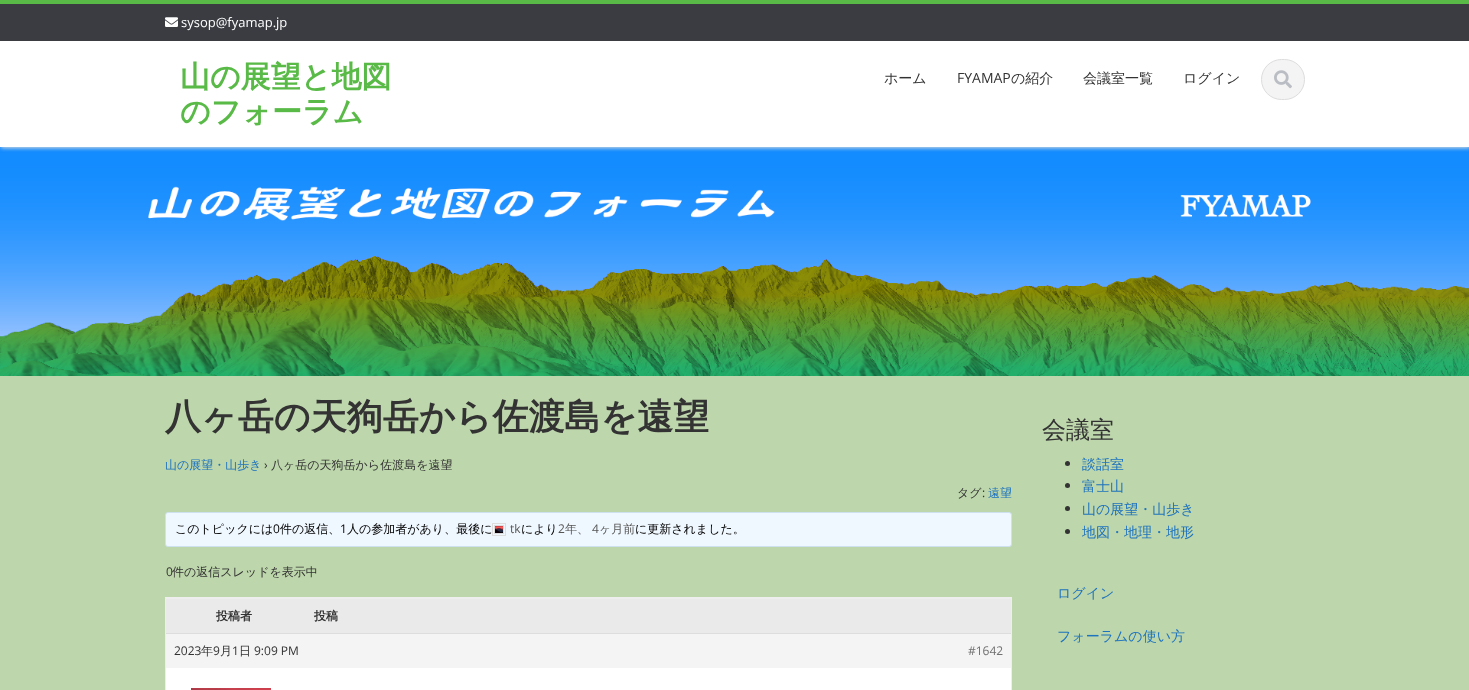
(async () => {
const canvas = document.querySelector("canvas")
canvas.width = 1469
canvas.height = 690
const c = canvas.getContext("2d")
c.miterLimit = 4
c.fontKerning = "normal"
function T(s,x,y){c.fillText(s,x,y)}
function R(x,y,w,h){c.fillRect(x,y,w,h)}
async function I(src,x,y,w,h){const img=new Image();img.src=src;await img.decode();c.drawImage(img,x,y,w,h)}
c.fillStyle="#bdd6ab"
R(0,0,1469,690)
await I("3.png",0,147,1469,229)
c.fillStyle="#ddd"
c.filter="blur(2px)"
c.beginPath()
c.rect(1,1,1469,147)
c.fill()
c.filter="none"
c.fillStyle="#3a3c41"
R(0,4,1469,37)
c.fillStyle="#59ba47"
R(0,0,1469,4)
await I("1.png",165,17,13,10)
c.font="13px Open Sans"
c.fillStyle="#fff"
T("sysop@fyamap.jp",181,27)
R(0,41,1469,106)
c.font="bold 30px WenQuanYi Zen Hei"
c.fillStyle="#59ba47"
T("山の展望と地図",180,87)
T("のフォーラム",180,122)
c.font="500 14px WenQuanYi Zen Hei"
c.fillStyle="#333"
T("ホーム",884,83)
c.font="14px Open Sans"
T("FYAMAP",957,83)
c.font="500 14px WenQuanYi Zen Hei"
T("の紹介",1011,83)
T("会議室一覧",1083,83)
T("ログイン",1183,83)
c.fillStyle="#f4f4f4"
c.beginPath()
c.roundRect(1261.5,59.5,43,40,20)
c.fill()
c.strokeStyle="#ddd"
c.stroke()
await I("2.png",1274,70,18,19)
c.font="bold 36px WenQuanYi Zen Hei"
c.fillStyle="#333"
T("八ヶ岳の天狗岳から佐渡島を遠望",165,429)
c.font="500 12px WenQuanYi Zen Hei"
c.fillStyle="#1e73be"
T("山の展望・山歩き",165,469)
c.font="12px Open Sans"
c.fillStyle="#333"
T("›",264,469)
c.font="500 12px WenQuanYi Zen Hei"
T("八ヶ岳の天狗岳から佐渡島を遠望",271,469)
T("タグ",957,497)
c.font="12px Open Sans"
T(":",982,497)
c.font="500 12px WenQuanYi Zen Hei"
c.fillStyle="#1e73be"
T("遠望",988,497)
c.fillStyle="#f0f8ff"
c.beginPath()
c.roundRect(165.5,512.5,846,34,2.5)
c.fill()
c.strokeStyle="#cee1ef"
c.stroke()
c.fillStyle="#000"
T("このトピックには",175,533)
c.font="12px Open Sans"
T("0",273,533)
c.font="500 12px WenQuanYi Zen Hei"
T("件の返信、",280,533)
c.font="12px Open Sans"
T("1",340,533)
c.font="500 12px WenQuanYi Zen Hei"
T("人の参加者があり、最後に",347,533)
c.strokeStyle="#ddd"
c.strokeRect(492.5,523.5,13,12)
c.strokeRect(494.5,525.5,9,8)
await I("4.png",495,526,8,7)
c.font="12px Open Sans"
c.fillStyle="#555"
T("tk",510,533)
c.font="500 12px WenQuanYi Zen Hei"
c.fillStyle="#000"
T("により",521,533)
c.font="12px Open Sans"
c.fillStyle="#555"
T("2",558,533)
c.font="500 12px WenQuanYi Zen Hei"
T("年、",565,533)
c.font="12px Open Sans"
T("4",592,533)
c.font="500 12px WenQuanYi Zen Hei"
T("ヶ月前",599,533)
c.fillStyle="#000"
T("に更新されました。",635,533)
c.font="12px Open Sans"
c.fillStyle="#333"
T("0",166,576)
c.font="500 12px WenQuanYi Zen Hei"
T("件の返信スレッドを表示中",172,576)
c.strokeStyle="#eee"
c.strokeRect(165.5,597.5,846,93)
c.fillStyle="#eaeaea"
R(166,599,845,34)
c.fillStyle="#eee"
R(166,598,845,1)
c.font="bold 12px WenQuanYi Zen Hei"
c.fillStyle="#333"
T("投稿者",216,620)
T("投稿",314,620)
c.fillStyle="#f4f4f4"
R(166,634,845,34)
c.fillStyle="#ddd"
R(166,633,845,1)
c.font="12px Open Sans"
c.fillStyle="#333"
T("2023",174,655)
c.font="500 12px WenQuanYi Zen Hei"
T("年",201,655)
c.font="12px Open Sans"
T("9",213,655)
c.font="500 12px WenQuanYi Zen Hei"
T("月",220,655)
c.font="12px Open Sans"
T("1",232,655)
c.font="500 12px WenQuanYi Zen Hei"
T("日",239,655)
c.font="12px Open Sans"
T("9:09 PM",254,655)
c.fillStyle="#707070"
T("#1642",968,655)
c.fillStyle="#fff"
R(166,668,845,22)
await I("5.png",191,688,80,2)
c.font="500 24px WenQuanYi Zen Hei"
c.fillStyle="#333"
T("会議室",1042,438)
c.beginPath()
c.arc(1067.5,463.5,2.5,0,7)
c.fill()
c.font="500 14px WenQuanYi Zen Hei"
c.fillStyle="#1e73be"
T("談話室",1082,469)
c.fillStyle="#333"
c.beginPath()
c.arc(1067.5,485.5,2.5,0,7)
c.fill()
c.fillStyle="#1e73be"
T("富士山",1082,491)
c.fillStyle="#333"
c.beginPath()
c.arc(1067.5,508.5,2.5,0,7)
c.fill()
c.fillStyle="#1e73be"
T("山の展望・山歩き",1082,514)
c.fillStyle="#333"
c.beginPath()
c.arc(1067.5,531.5,2.5,0,7)
c.fill()
c.fillStyle="#1e73be"
T("地図・地理・地形",1082,537)
T("ログイン",1057,598)
T("フォーラムの使い方",1057,641)
})()
